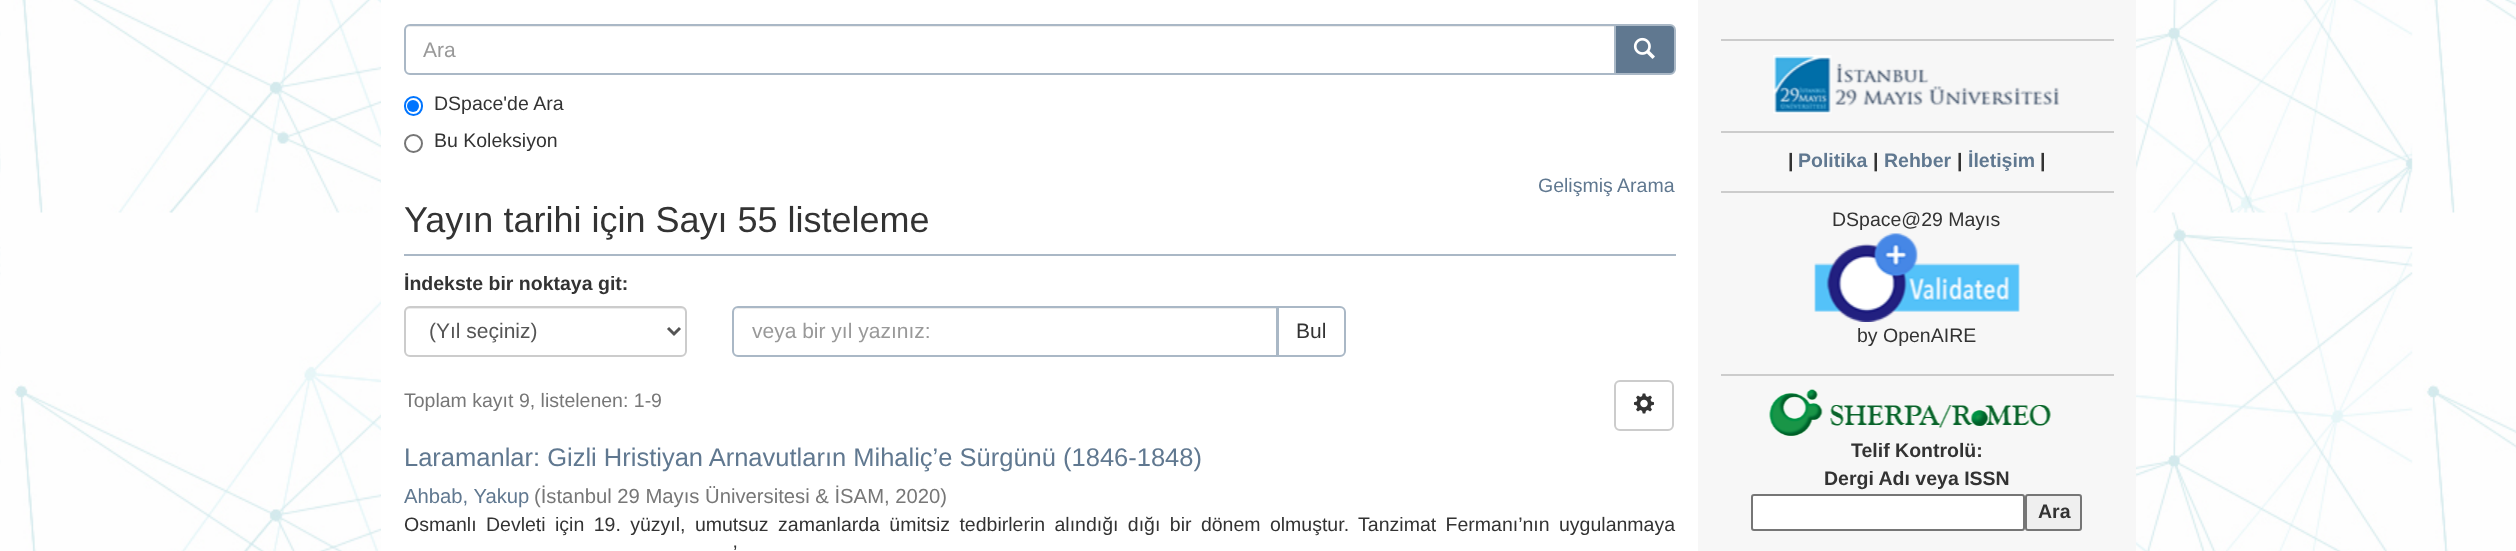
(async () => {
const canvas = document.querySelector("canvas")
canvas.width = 2516
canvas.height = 551
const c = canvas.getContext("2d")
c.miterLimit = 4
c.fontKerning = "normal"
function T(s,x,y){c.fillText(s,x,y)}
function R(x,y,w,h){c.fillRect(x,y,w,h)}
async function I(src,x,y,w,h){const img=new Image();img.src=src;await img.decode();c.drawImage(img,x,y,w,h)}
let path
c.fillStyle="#fff"
R(0,0,2516,551)
await I("1.png",0,0,2516,551)
c.fillStyle="#f7f7f7"
R(1698,0,438,551)
c.fillStyle="#fff"
R(381,0,1317,551)
c.fillStyle="#607890"
c.beginPath()
c.roundRect(1615,25,60,49,[0,5,5,0])
c.fill()
c.strokeStyle="#aab8c6"
c.lineWidth=2
c.stroke()
c.fillStyle="#fff"
c.beginPath()
c.roundRect(404,24,1212,51,[6,0,0,6])
c.fill()
c.fillStyle="#ececec"
path = new Path2D("M410 27h1204v-1h-1204c-3 0-5 3-5 6c0-3 2-5 5-5z")
c.fill(path)
c.beginPath()
c.roundRect(405,25,1210,49,[5,0,0,5])
c.stroke()
c.font="21px Liberation Sans"
c.fillStyle="#999"
T("Ara",423,57)
await I("2.png",1633,37,22,22)
c.beginPath()
c.roundRect(405,97,17,18,8.5)
c.strokeStyle="#0075ff"
c.stroke()
c.fillStyle="#0075ff"
c.beginPath()
c.arc(413,106,6,0,7)
c.fill()
c.font="19.5px Liberation Sans"
c.fillStyle="#333"
T("DSpace'de Ara",434,110)
c.beginPath()
c.arc(413.5,143.5,8.5,0,7)
c.strokeStyle="#767676"
c.stroke()
T("Bu Koleksiyon",434,147)
c.fillStyle="#607890"
T("Gelişmiş Arama",1538,192)
c.fillStyle="#aab8c6"
R(404,254,1272,2)
c.font="36px Liberation Sans"
c.fillStyle="#333"
T("Yayın tarihi için Sayı 55 listeleme",404,232)
c.font="bold 19.5px Liberation Sans"
T("İndekste bir noktaya git:",404,290)
c.fillStyle="#ececec"
path = new Path2D("M410 309h271c2 0 5 2 5 5v-1c0-3-2-5-5-5h-271c-3 0-5 2-5 5v1c0-3 2-5 5-5z")
c.fill(path)
c.beginPath()
c.roundRect(405,307,281,49,5)
c.strokeStyle="#ccc"
c.stroke()
path = new Path2D("M668 328l6 6l6-6")
c.strokeStyle="#555"
c.lineWidth=3
c.stroke(path)
c.font="21px Liberation Sans"
c.fillStyle="#555"
T("(Yıl seçiniz)",429,338)
c.beginPath()
c.roundRect(1278,307,67,49,[0,5,5,0])
c.strokeStyle="#aab8c6"
c.lineWidth=2
c.stroke()
c.fillStyle="#fff"
c.beginPath()
c.roundRect(732,306,546,51,[6,0,0,6])
c.fill()
c.fillStyle="#ececec"
path = new Path2D("M738 309h538v47h1v-48h-538c-3 0-5 3-5 6c0-3 2-5 4-5z")
c.fill(path)
c.beginPath()
c.roundRect(733,307,544,49,[5,0,0,5])
c.stroke()
c.fillStyle="#999"
T("veya bir yıl yazınız:",752,338)
c.fillStyle="#333"
T("Bul",1296,338)
c.font="19.5px Liberation Sans"
c.fillStyle="#777"
T("Toplam kayıt 9, listelenen: 1-9",404,407)
c.beginPath()
c.roundRect(1615,381,58,49,5)
c.strokeStyle="#ccc"
c.stroke()
await I("3.png",1633,393,22,21)
c.font="25.5px Liberation Sans"
c.fillStyle="#607890"
T("Laramanlar: Gizli Hristiyan Arnavutların Mihaliç’e Sürgünü (1846-1848)",404,466)
c.font="20.25px Liberation Sans"
T("Ahbab, Yakup",404,503)
c.fillStyle="#777"
T("(İstanbul 29 Mayıs Üniversitesi & İSAM, 2020)",534,503)
c.wordSpacing="4px"
c.font="19.5px Liberation Sans"
c.fillStyle="#333"
T("Osmanlı Devleti için 19. yüzyıl, umutsuz zamanlarda ümitsiz tedbirlerin alındığı dığı bir dönem olmuştur. Tanzimat Fermanı’nın uygulanmaya",404,531)
c.wordSpacing="0px"
T("’",733,559)
c.fillStyle="#ccc"
R(1721,39,393,2)
await I("4.png",1773,55,287,59)
R(1721,131,393,2)
c.font="bold 19.5px Liberation Sans"
c.fillStyle="#333"
T("|",1788,167)
c.fillStyle="#607890"
T("Politika",1798,167)
c.fillStyle="#333"
T("|",1873,167)
c.fillStyle="#607890"
T("Rehber",1884,167)
c.fillStyle="#333"
T("|",1957,167)
c.fillStyle="#607890"
T("İletişim",1968,167)
c.fillStyle="#333"
T("|",2040,167)
c.fillStyle="#ccc"
R(1721,191,393,2)
c.font="19.5px Liberation Sans"
c.fillStyle="#333"
T("DSpace@29 Mayıs",1832,226)
await I("5.png",1814,233,206,89)
T("by OpenAIRE",1857,342)
c.fillStyle="#ccc"
R(1721,374,393,2)
await I("6.png",1769,389,282,47)
c.font="bold 19.5px Liberation Sans"
c.fillStyle="#333"
T("Telif Kontrolü:",1851,457)
T("Dergi Adı veya ISSN",1824,485)
c.fillStyle="#fff"
c.beginPath()
c.roundRect(1752,495,272,35,2)
c.fill()
c.strokeStyle="#767676"
c.stroke()
c.fillStyle="#efefef"
c.beginPath()
c.roundRect(2026,495,55,35,2)
c.fill()
c.stroke()
c.fillStyle="#333"
T("Ara",2038,518)
})()
